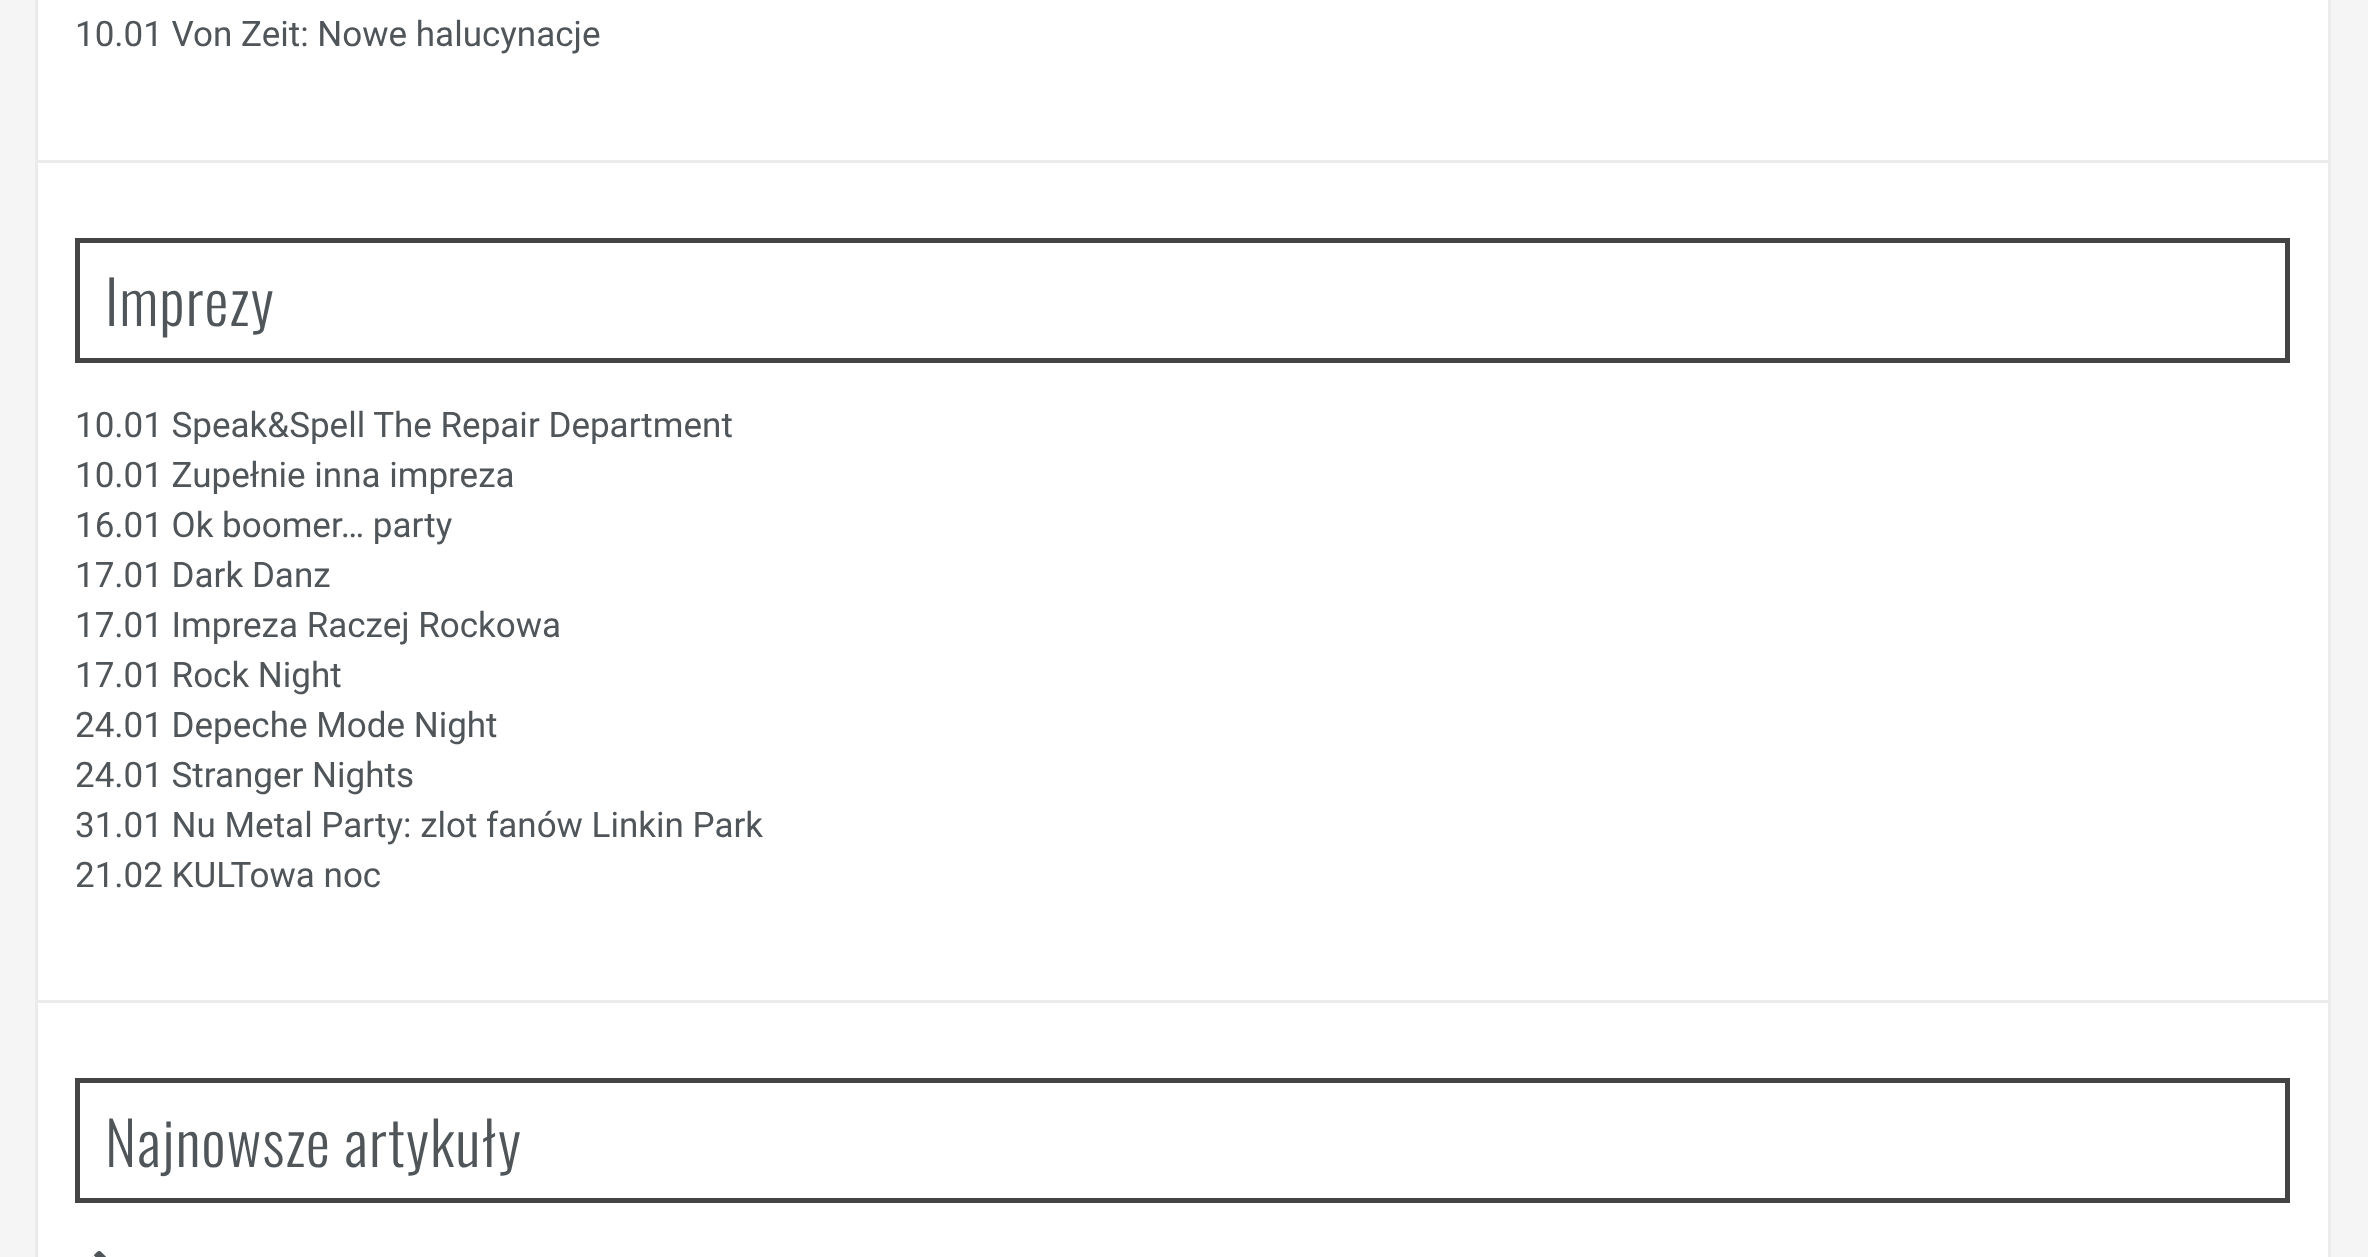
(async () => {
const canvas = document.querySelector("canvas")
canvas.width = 2368
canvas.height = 1257
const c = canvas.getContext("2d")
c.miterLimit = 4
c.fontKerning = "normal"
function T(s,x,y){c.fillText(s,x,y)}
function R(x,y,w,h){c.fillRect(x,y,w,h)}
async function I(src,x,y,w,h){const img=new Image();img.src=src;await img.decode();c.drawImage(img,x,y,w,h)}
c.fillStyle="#f5f5f5"
R(0,0,2368,1257)
c.fillStyle="#fff"
R(38,0,2290,160)
c.fillStyle="#ebebeb"
R(2328,0,3,1257)
R(35,160,2295,3)
R(35,0,3,163)
c.font="35px Roboto"
c.fillStyle="#505559"
T("10.01 Von Zeit: Nowe halucynacje",75,46)
c.fillStyle="#fff"
R(38,163,2290,837)
c.fillStyle="#ebebeb"
R(35,1000,2295,3)
R(35,163,3,1094)
c.strokeStyle="#444"
c.lineWidth=5
c.strokeRect(77.5,240.5,2210,120)
c.letterSpacing="1.25px"
c.font="300 60px Oswald"
c.fillStyle="#505559"
T("Imprezy",105,326)
c.letterSpacing="0px"
c.font="35px Roboto"
T("10.01 Speak&Spell The Repair Department",75,437)
T("10.01 Zupełnie inna impreza",75,487)
T("16.01 Ok boomer… party",75,537)
T("17.01 Dark Danz",75,587)
T("17.01 Impreza Raczej Rockowa",75,637)
T("17.01 Rock Night",75,687)
T("24.01 Depeche Mode Night",75,737)
T("24.01 Stranger Nights",75,787)
T("31.01 Nu Metal Party: zlot fanów Linkin Park",75,837)
T("21.02 KULTowa noc",75,887)
c.fillStyle="#fff"
R(38,1003,2290,254)
c.strokeRect(77.5,1080.5,2210,120)
c.letterSpacing="1.25px"
c.font="300 60px Oswald"
c.fillStyle="#505559"
T("Najnowsze artykuły",105,1167)
await I("1.png",92,1251,14,6)
})()
